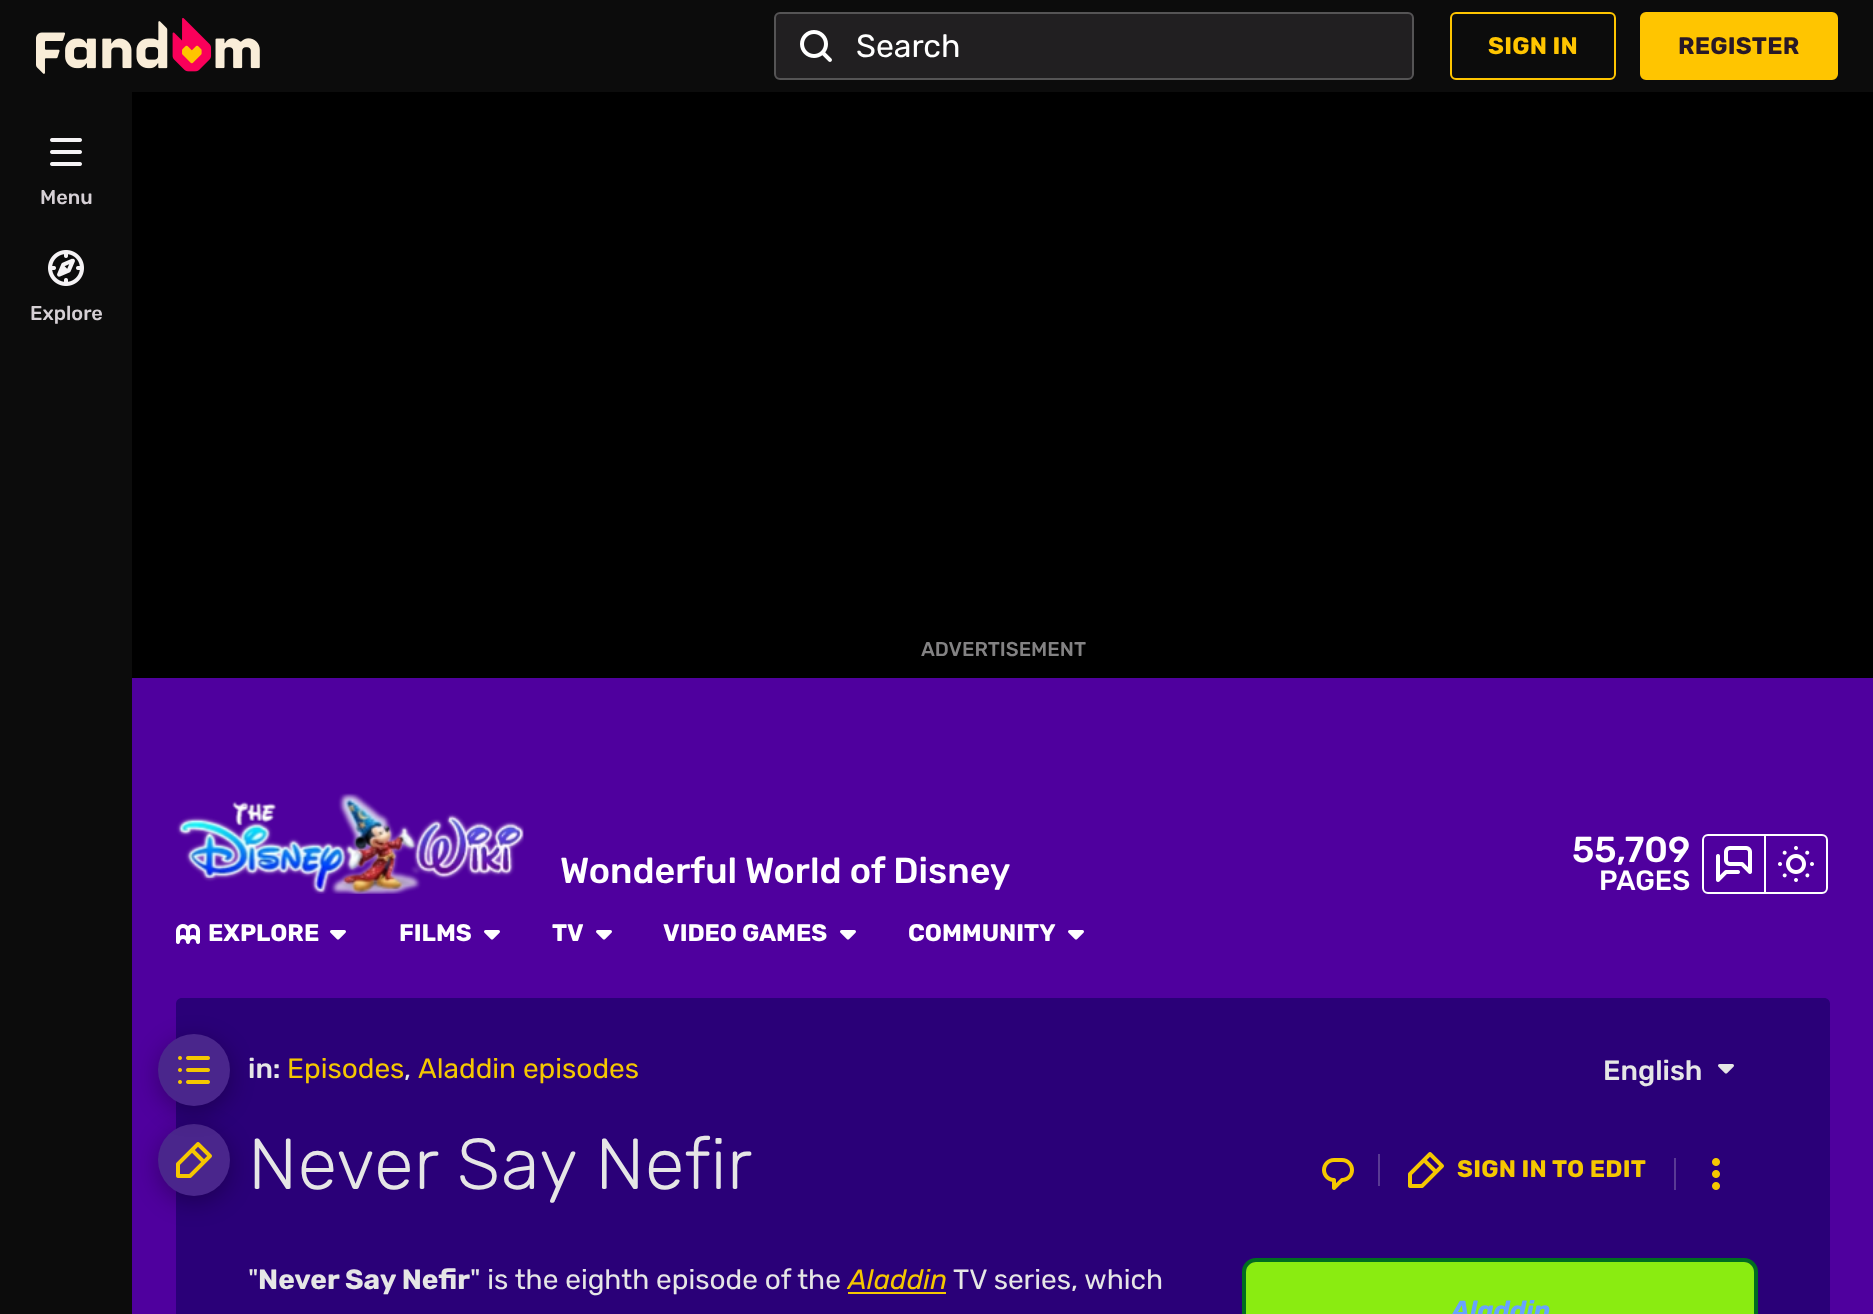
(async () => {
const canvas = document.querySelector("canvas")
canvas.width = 1873
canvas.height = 1314
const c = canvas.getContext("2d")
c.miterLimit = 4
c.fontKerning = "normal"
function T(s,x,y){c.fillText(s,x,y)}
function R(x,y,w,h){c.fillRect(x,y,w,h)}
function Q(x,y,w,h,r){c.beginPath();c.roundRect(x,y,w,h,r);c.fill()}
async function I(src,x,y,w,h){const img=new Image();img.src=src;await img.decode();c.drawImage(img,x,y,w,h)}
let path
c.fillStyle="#4f009e"
R(0,0,1873,1314)
c.fillStyle="#0c0c0c"
R(0,0,1873,92)
await I("1.png",36,18,224,56)
c.fillStyle="#211f21"
Q(774,12,640,68,6)
c.beginPath()
c.roundRect(775,13,638,66,5)
c.strokeStyle="#f5f3f540"
c.lineWidth=2
c.stroke()
await I("2.png",800,30,32,32)
c.font="32px Rubik"
c.fillStyle="#fff"
T("Search",856,57)
c.beginPath()
c.roundRect(1451,13,164,66,5)
c.strokeStyle="#ffc500"
c.stroke()
c.letterSpacing="0.25px"
c.font="bold 24px Rubik"
c.fillStyle="#ffc500"
T("SIGN IN",1488,54)
c.beginPath()
c.roundRect(1641,13,196,66,5)
c.fill()
c.stroke()
c.fillStyle="#291927"
T("REGISTER",1678,54)
c.fillStyle="#2a0078"
path = new Path2D("M182 998h1642c3.5 0 6 2.5 6 6v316h-1654v-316c0-3.5 2.5-6 6-6z")
c.fill(path)
c.fillStyle="#0000004d"
c.filter="blur(12px)"
c.beginPath()
c.roundRect(158,1130,72,72,36)
c.fill()
c.filter="none"
c.fillStyle="#4a268c"
c.beginPath()
c.arc(194,1160,36,0,7)
c.fill()
await I("11.png",176,1142,36,36)
c.fillStyle="#0000004d"
c.filter="blur(12px)"
c.beginPath()
c.roundRect(158,1040,72,72,36)
c.fill()
c.filter="none"
c.fillStyle="#0c0c0c"
R(0,92,132,1222)
await I("3.png",50,138,32,28)
c.letterSpacing="0px"
c.font="500 20px Rubik"
c.fillStyle="#d6d0d5"
T("Menu",40,204)
await I("4.png",48,250,36,36)
T("Explore",30,320)
c.fillStyle="#000"
R(132,92,1741,586)
c.fillStyle="#838283"
T("ADVERTISEMENT",921,656)
await I("5.png",176,793,348,101)
c.font="500 36px Rubik"
c.fillStyle="#fff"
T("Wonderful World of Disney",560,883)
T("55,709",1572,862)
c.font="500 28px Rubik"
T("PAGES",1599,890)
c.beginPath()
c.roundRect(1703,835,62,58,[5,0,0,5])
c.strokeStyle="#fff"
c.stroke()
await I("6.png",1716,846,36,36)
c.beginPath()
c.roundRect(1765,835,62,58,[0,5,5,0])
c.stroke()
await I("7.png",1778,846,36,36)
await I("8.png",176,924,24,20)
c.font="bold 24px Rubik"
T("EXPLORE",208,941)
await I("9.png",330,930,16,10)
T("FILMS",399,941)
await I("9.png",484,930,16,10)
T("TV",552,941)
await I("9.png",596,930,16,10)
T("VIDEO GAMES",663,941)
await I("9.png",840,930,16,10)
T("COMMUNITY",908,941)
await I("9.png",1068,930,16,10)
c.fillStyle="#4a268c"
c.beginPath()
c.arc(194,1070,36,0,7)
c.fill()
await I("10.png",178,1056,32,28)
c.font="500 28px Rubik"
c.fillStyle="#e6e6e6"
T("in:",248,1078)
c.font="28px Rubik"
c.fillStyle="#f5c700"
T("Episodes",287,1078)
c.fillStyle="#e6e6e6"
T(",",404,1078)
c.fillStyle="#f5c700"
T("Aladdin episodes",418,1078)
c.font="500 28px Rubik"
c.fillStyle="#e6e6e6"
T("English",1603,1080)
await I("12.png",1718,1064,16,10)
c.letterSpacing="0.5px"
c.font="300 72px Rubik"
T("Never Say Nefir",248,1189)
await I("13.png",1322,1158,32,32)
c.fillStyle="#593a94"
R(1378,1154,2,32)
await I("14.png",1408,1152,36,36)
c.letterSpacing="0.25px"
c.font="bold 24px Rubik"
c.fillStyle="#f5c700"
T("SIGN IN TO EDIT",1457,1177)
c.fillStyle="#593a94"
R(1674,1158,2,32)
await I("15.png",1712,1158,8,32)
c.letterSpacing="0px"
c.font="28px Rubik"
c.fillStyle="#e6e6e6"
T("\"",248,1289)
c.font="bold 28px Rubik"
T("Never Say Nefir",258,1289)
c.font="28px Rubik"
T("\" is the eighth episode of the",470,1289)
c.font="italic 28px Rubik"
c.fillStyle="#f5c700"
T("Aladdin",848,1289)
R(848,1292,98,2)
c.font="28px Rubik"
c.fillStyle="#e6e6e6"
T("TV series, which",953,1289)
c.beginPath()
c.roundRect(1244,1260,512,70,12)
c.strokeStyle="#006d20"
c.lineWidth=4
c.stroke()
c.fillStyle="#8aec11"
path = new Path2D("M1256 1262h488c5.5 0 10 4.5 10 10v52h-508v-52c0-5.5 4.5-10 10-10z")
c.fill(path)
c.font="italic bold 26px Rubik"
c.fillStyle="#68a3ff"
T("Aladdin",1451,1319)
})()
